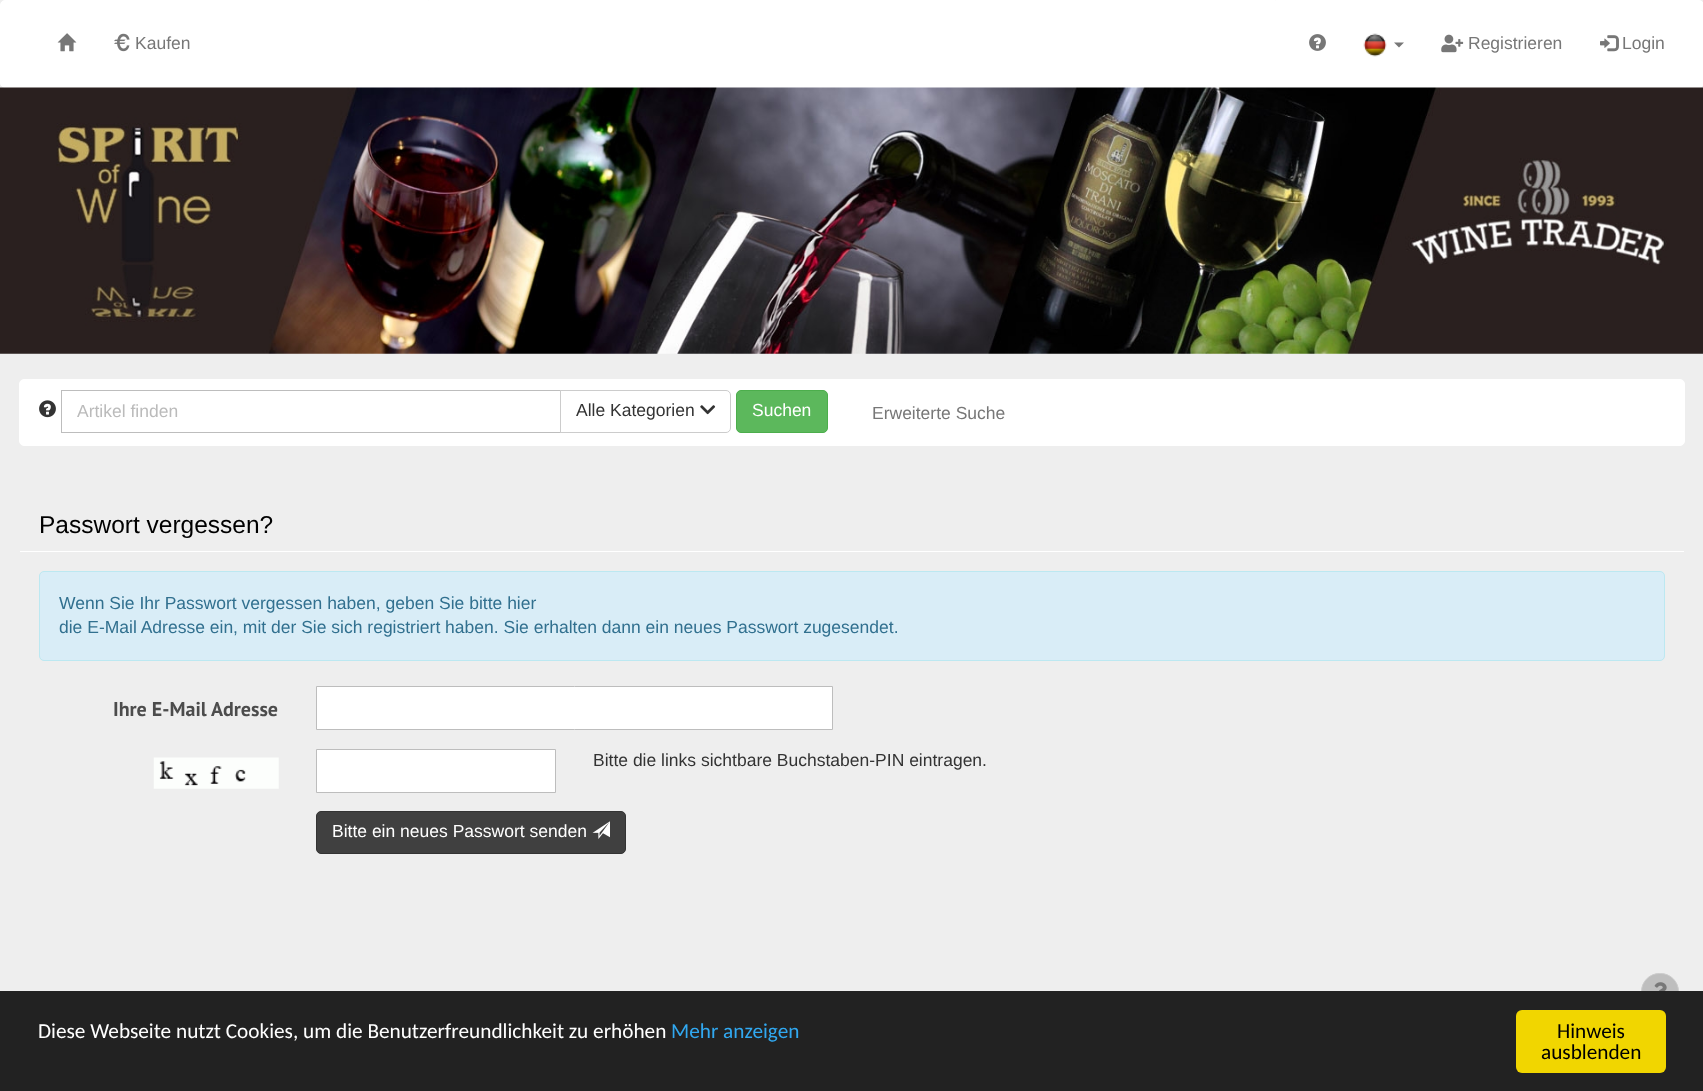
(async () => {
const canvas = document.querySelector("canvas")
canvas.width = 1703
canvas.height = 1091
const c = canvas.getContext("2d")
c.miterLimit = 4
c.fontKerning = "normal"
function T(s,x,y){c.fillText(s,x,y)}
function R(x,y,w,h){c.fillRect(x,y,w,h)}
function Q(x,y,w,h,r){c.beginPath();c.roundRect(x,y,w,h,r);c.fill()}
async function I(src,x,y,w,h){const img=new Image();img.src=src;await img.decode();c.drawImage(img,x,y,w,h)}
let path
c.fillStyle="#eee"
R(0,0,1703,1091)
c.fillStyle="#fff"
c.beginPath()
c.roundRect(.5,.5,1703,87,4.5)
c.fill()
c.strokeStyle="#fff"
c.stroke()
await I("1.png",57,33,20,19)
await I("2.png",114,33,16,19)
c.font="17.5px Liberation Sans"
c.fillStyle="#777"
T("Kaufen",135,49)
await I("3.png",1309,34,17,17)
await I("4.png",1363,33,24,24)
path = new Path2D("M1394 42.5h10l-5 5z")
c.fill(path)
await I("5.png",1441,34,23,19)
T("Registrieren",1468,49)
await I("6.png",1600,35,19,17)
T("Login",1622,49)
await I("7.png",0,87,1703,267)
c.fillStyle="#fff"
c.beginPath()
c.roundRect(19.5,379.5,1665,66,4.5)
c.fill()
c.stroke()
await I("8.png",39,400,17,18)
c.strokeStyle="#bdbdbd"
c.strokeRect(61.5,390.5,499,42)
c.fillStyle="#bbb"
T("Artikel finden",77,417)
c.fillStyle="#fff"
c.beginPath()
c.roundRect(560.5,390.5,170,42,[0,4.5,4.5,0])
c.fill()
c.strokeStyle="#ccc"
c.stroke()
c.fillStyle="#333"
T("Alle Kategorien",576,416)
await I("9.png",700,405,16,10)
c.fillStyle="#5cb85c"
c.beginPath()
c.roundRect(736.5,390.5,91,42,4.5)
c.fill()
c.strokeStyle="#4cae4c"
c.stroke()
c.fillStyle="#fff"
T("Suchen",752,416)
c.fillStyle="#777"
T("Erweiterte Suche",872,419)
c.fillStyle="#fff"
R(20,551,1664,1)
c.font="24.5px Liberation Sans"
c.fillStyle="#000"
T("Passwort vergessen?",39,533)
c.fillStyle="#d9edf7"
c.beginPath()
c.roundRect(39.5,571.5,1625,89,4.5)
c.fill()
c.strokeStyle="#bce8f1"
c.stroke()
c.font="17.5px Liberation Sans"
c.fillStyle="#31708f"
T("Wenn Sie Ihr Passwort vergessen haben, geben Sie bitte hier",59,609)
T("die E-Mail Adresse ein, mit der Sie sich registriert haben. Sie erhalten dann ein neues Passwort zugesendet.",59,633)
c.font="bold 20px PT Sans"
c.fillStyle="#4c4c4c"
T("Ihre E-Mail Adresse",113,716)
c.fillStyle="#fff"
c.beginPath()
c.rect(316.5,686.5,516,43)
c.fill()
c.strokeStyle="#bdbdbd"
c.stroke()
await I("10.png",153,757,126,32)
c.beginPath()
c.rect(316.5,749.5,239,43)
c.fill()
c.stroke()
c.font="17.5px Liberation Sans"
c.fillStyle="#333"
T("Bitte die links sichtbare Buchstaben-PIN eintragen.",593,766)
c.fillStyle="#404040"
c.beginPath()
c.roundRect(316.5,811.5,309,42,4.5)
c.fill()
c.strokeStyle="#333"
c.stroke()
c.fillStyle="#fff"
T("Bitte ein neues Passwort senden",332,837)
await I("11.png",592,821,18,18)
c.fillStyle="#bebebe"
c.beginPath()
c.roundRect(1641.5,973.5,37,36,18)
c.fill()
c.strokeStyle="#ccc"
c.stroke()
await I("12.png",1654,982,13,9)
c.fillStyle="#222"
R(0,991,1703,100)
c.font="21.25px Carlito"
c.fillStyle="#fff"
T("Diese Webseite nutzt Cookies, um die Benutzerfreundlichkeit zu erhöhen",38,1038)
c.fillStyle="#31a8f0"
T("Mehr anzeigen",671,1038)
c.fillStyle="#f1d600"
Q(1516,1010,150,63,6)
c.fillStyle="#000"
T("Hinweis",1557,1038)
T("ausblenden",1541,1059)
})()
